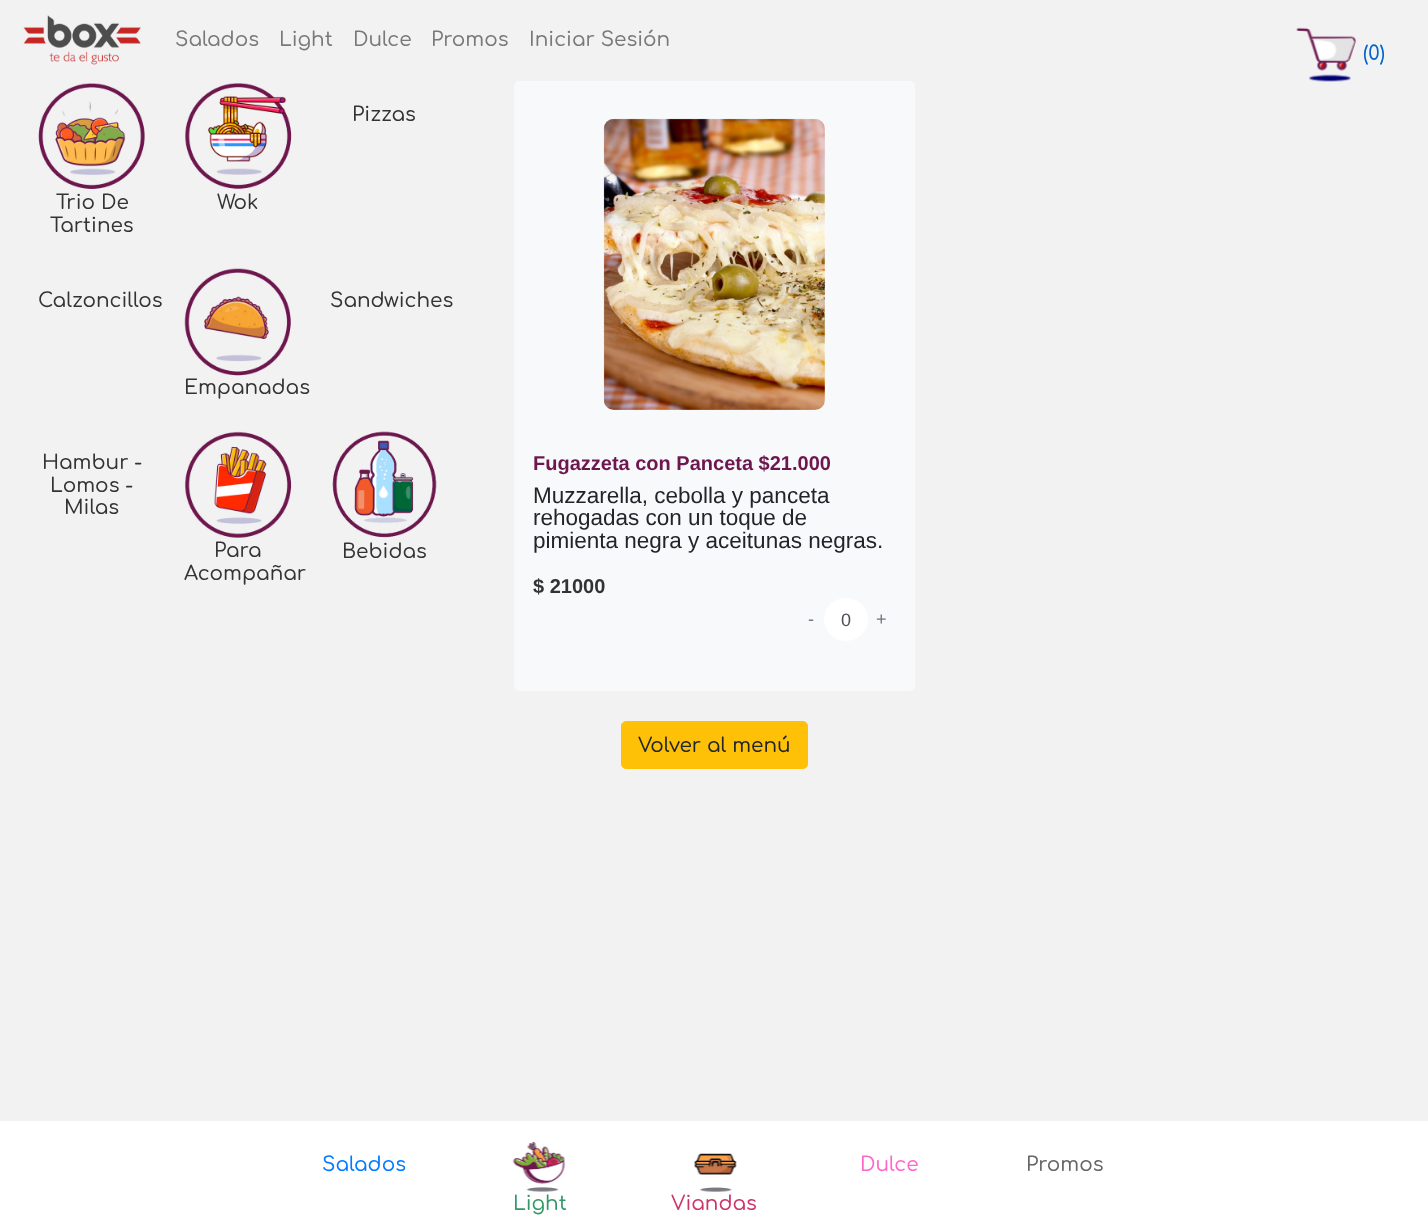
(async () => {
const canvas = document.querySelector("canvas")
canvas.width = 1428
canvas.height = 1218
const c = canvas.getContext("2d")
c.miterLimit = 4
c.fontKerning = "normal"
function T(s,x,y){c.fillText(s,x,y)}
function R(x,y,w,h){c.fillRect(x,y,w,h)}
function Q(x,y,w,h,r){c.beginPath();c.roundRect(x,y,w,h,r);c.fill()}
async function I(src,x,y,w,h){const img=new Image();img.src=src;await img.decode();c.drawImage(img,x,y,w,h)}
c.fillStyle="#f2f2f3"
R(0,0,1428,1218)
await I("1.png",23,15,118,50)
c.font="500 20px Comfortaa"
c.fillStyle="#79797a"
T("Salados",175,46)
T("Light",279,46)
T("Dulce",353,46)
T("Promos",431,46)
T("Iniciar Sesión",529,46)
await I("2.png",1296,27,60,55)
c.fillStyle="#06c"
T("(0)",1363,60)
c.fillStyle="#333"
T("Pizzas",352,121)
await I("3.png",38,83,107,106)
T("Trio De",56,209)
T("Tartines",50,232)
await I("4.png",185,83,107,106)
T("Wok",217,209)
T("Calzoncillos",38,307)
T("Sandwiches",330,307)
await I("5.png",184,268,107,108)
T("Empanadas",184,394)
T("Hambur -",42,469)
T("Lomos -",50,492)
T("Milas",64,514)
await I("6.png",184,431,108,107)
T("Para",214,557)
T("Acompañar",184,580)
await I("7.png",332,431,105,107)
T("Bebidas",342,558)
c.fillStyle="#f8f9fa"
Q(514,81,401,610,5)
await I("8.png",603,118,222,292)
c.font="bold 20px Liberation Sans"
c.fillStyle="#6d174e"
T("Fugazzeta con Panceta $21.000",533,470)
c.font="22.5px Liberation Sans"
c.fillStyle="#212529"
T("Muzzarella, cebolla y panceta",533,503)
T("rehogadas con un toque de",533,525)
T("pimienta negra y aceitunas negras.",533,548)
c.font="bold 20px Liberation Sans"
c.fillStyle="#333"
T("$ 21000",533,593)
c.font="18px Liberation Sans"
c.fillStyle="#6c757d"
T("-",808,625)
c.fillStyle="#fff"
Q(824,598,44,43,21.5)
c.fillStyle="#495057"
T("0",841,626)
c.fillStyle="#6c757d"
T("+",876,625)
c.fillStyle="#ffc107"
c.beginPath()
c.roundRect(621.5,721.5,186,47,4.5)
c.fill()
c.strokeStyle="#ffc107"
c.stroke()
c.font="500 20px Comfortaa"
c.fillStyle="#212529"
T("Volver al menú",638,752)
c.fillStyle="#fff"
R(0,1121,1428,97)
c.fillStyle="#007bff"
T("Salados",322,1171)
c.fillStyle="#f6c"
T("Dulce",860,1171)
c.fillStyle="#666"
T("Promos",1026,1171)
await I("9.png",512,1141,54,51)
c.fillStyle="#396"
T("Light",513,1210)
await I("10.png",694,1153,43,39)
c.fillStyle="#c36"
T("Viandas",671,1210)
})()
